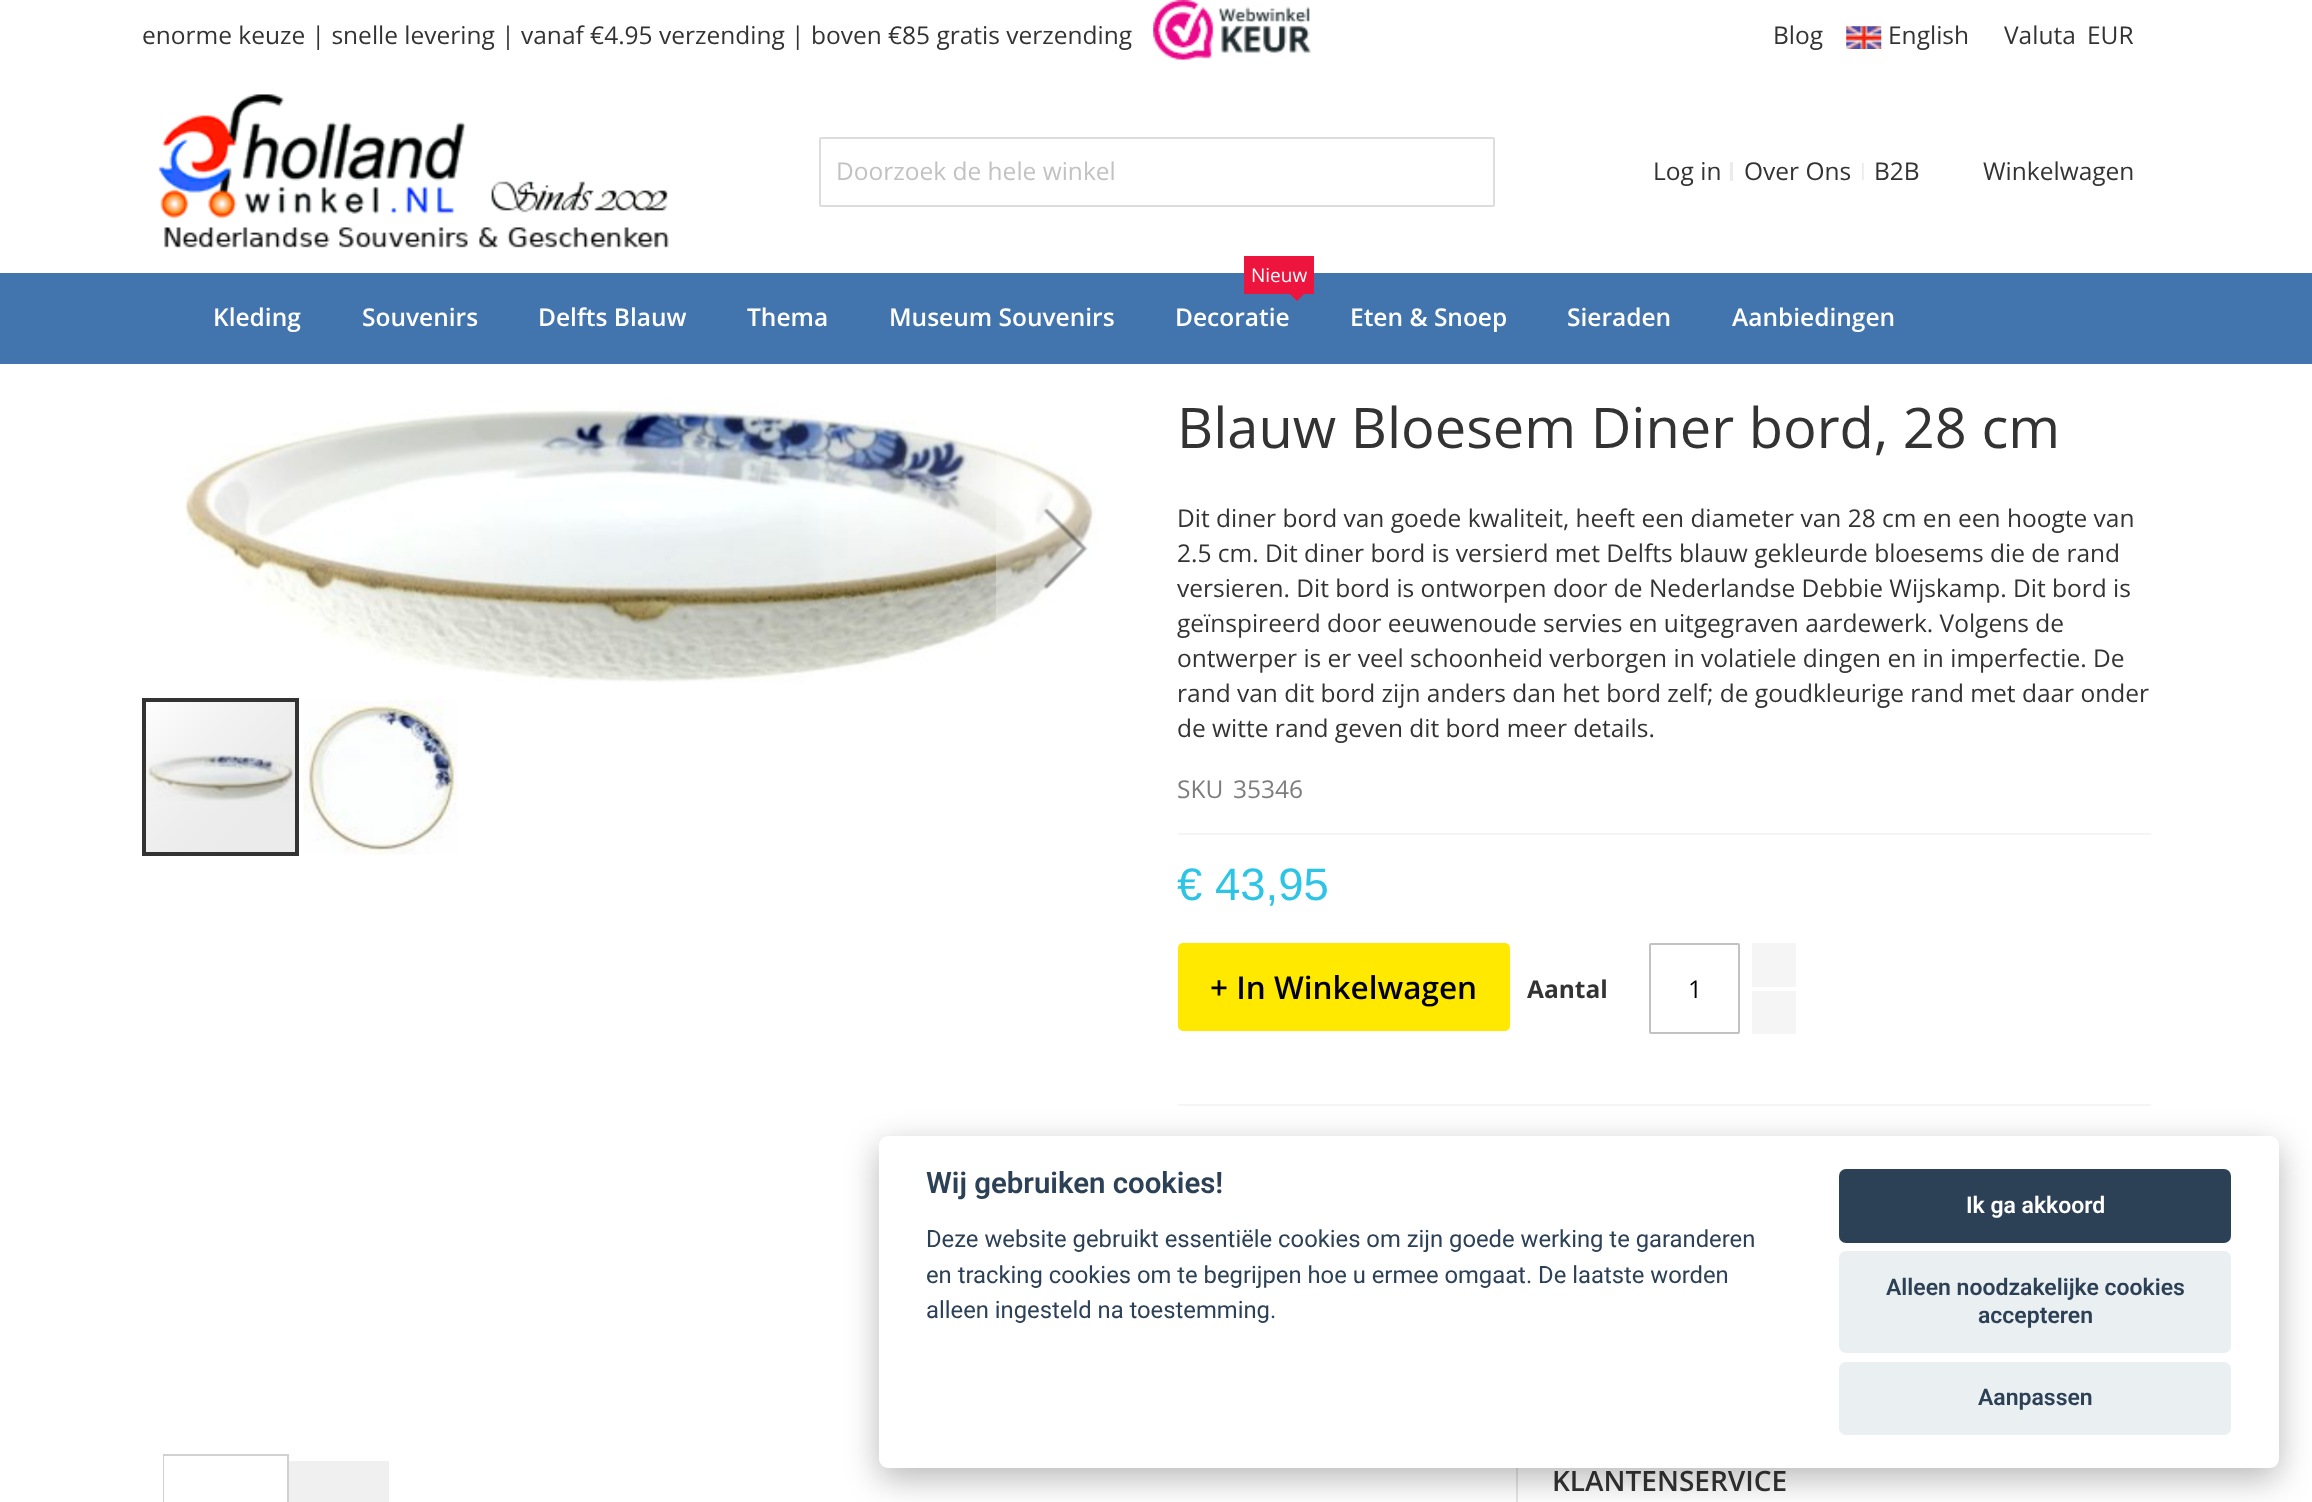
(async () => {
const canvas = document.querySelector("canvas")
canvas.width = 2312
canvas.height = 1502
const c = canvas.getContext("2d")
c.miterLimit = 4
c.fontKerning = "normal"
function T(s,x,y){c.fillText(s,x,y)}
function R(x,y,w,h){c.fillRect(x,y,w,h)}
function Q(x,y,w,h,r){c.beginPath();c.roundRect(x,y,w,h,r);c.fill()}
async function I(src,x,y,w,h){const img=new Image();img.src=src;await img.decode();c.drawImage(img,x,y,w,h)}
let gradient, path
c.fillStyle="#fff"
R(0,0,2312,1502)
c.font="24.5px Open Sans"
c.fillStyle="#333"
T("enorme keuze | snelle levering | vanaf €4.95 verzending | boven €85 gratis verzending",142,44)
await I("1.png",1153,0,158,60)
T("Blog",1773,44)
await I("2.png",1846,26,36,23)
T("English",1888,44)
T("Valuta",2004,44)
T("EUR",2087,44)
await I("3.png",158,94,511,154)
c.beginPath()
c.roundRect(820,138,674,68,1)
c.strokeStyle="#ddd"
c.lineWidth=2
c.stroke()
c.fillStyle="#c2c2c2"
T("Doorzoek de hele winkel",836,180)
c.fillStyle="#333"
T("Log in",1653,180)
c.fillStyle="#ebebeb"
R(1730,162,3,19)
c.fillStyle="#333"
T("Over Ons",1744,180)
await I("4.png",1862,163,2,17)
T("B2B",1874,180)
T("Winkelwagen",1983,180)
c.fillStyle="#4274ad"
R(0,273,2312,91)
c.font="600 24.5px Open Sans"
c.fillStyle="#fff"
T("Kleding",213,326)
T("Souvenirs",362,326)
T("Delfts Blauw",538,326)
T("Thema",747,326)
T("Museum Souvenirs",889,326)
c.fillStyle="#ed143d"
R(1244,256,70,38)
c.font="19px Open Sans"
c.fillStyle="#fff"
T("Nieuw",1251,282)
c.fillStyle="#ed143d"
path = new Path2D("M1290 294h14l-7 7z")
c.fill(path)
c.font="600 24.5px Open Sans"
c.fillStyle="#fff"
T("Decoratie",1175,326)
T("Eten & Snoep",1350,326)
T("Sieraden",1567,326)
T("Aanbiedingen",1732,326)
await I("5.png",185,399,912,284)
c.fillStyle="#ffffff4d"
R(996,450,98,172)
await I("6.png",1043,508,45,81)
await I("8.png",146,754,149,47)
gradient = c.createLinearGradient(145,702,296,852)
gradient.addColorStop(0,"#ffffff40")
gradient.addColorStop(1,"#4040401a")
c.fillStyle = gradient
R(146,702,149,150)
c.strokeStyle="#333"
c.lineWidth=4
c.strokeRect(144,700,153,154)
await I("7.png",303,700,155,155)
c.font="56px Open Sans"
c.fillStyle="#333"
T("Blauw Bloesem Diner bord, 28 cm",1177,448)
c.font="24.5px Open Sans"
T("Dit diner bord van goede kwaliteit, heeft een diameter van 28 cm en een hoogte van",1177,527)
T("2.5 cm. Dit diner bord is versierd met Delfts blauw gekleurde bloesems die de rand",1177,562)
T("versieren. Dit bord is ontworpen door de Nederlandse Debbie Wijskamp. Dit bord is",1177,597)
T("geïnspireerd door eeuwenoude servies en uitgegraven aardewerk. Volgens de",1177,632)
T("ontwerper is er veel schoonheid verborgen in volatiele dingen en in imperfectie. De",1177,667)
T("rand van dit bord zijn anders dan het bord zelf; de goudkleurige rand met daar onder",1177,702)
T("de witte rand geven dit bord meer details.",1177,737)
c.fillStyle="#f5f5f5"
R(1178,833,973,2)
c.fillStyle="#7d7d7d"
T("SKU",1177,798)
T("35346",1233,798)
c.font="45.5px Liberation Sans"
c.fillStyle="#2dc4e6"
T("€ 43,95",1177,900)
c.fillStyle="#f5f5f5"
R(1178,1104,973,2)
c.fillStyle="#ffe900"
Q(1178,943,332,88,5)
c.font="600 31.5px Open Sans"
c.fillStyle="#000"
T("+ In Winkelwagen",1210,999)
c.font="bold 24.5px Open Sans"
c.fillStyle="#333"
T("Aantal",1527,998)
c.beginPath()
c.roundRect(1650,944,89,89,1)
c.strokeStyle="#c2c2c2"
c.lineWidth=2
c.stroke()
c.font="24.5px Open Sans"
c.fillStyle="#000"
T("1",1688,998)
c.fillStyle="#f5f5f5"
R(1752,943,44,44)
R(1752,991,44,43)
c.fillStyle="#d1d1d1"
R(163,1454,126,2)
path = new Path2D("M289 1454v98l-2-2v-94z")
c.fill(path)
path = new Path2D("M163 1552v-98l1 2v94z")
c.fill(path)
c.fillStyle="#f0f0f0"
R(289,1461,100,41)
c.fillStyle="#e5e5e5"
R(1516,1461,2,41)
c.font="600 28px Open Sans"
c.fillStyle="#333"
T("KLANTENSERVICE",1552,1491)
c.fillStyle="#02020347"
c.filter="blur(16.5px)"
c.beginPath()
c.roundRect(879,1146,1400,333,9)
c.fill()
c.filter="none"
c.fillStyle="#fff"
Q(879,1136,1400,332,9)
c.font="600 29.4px Roboto"
c.fillStyle="#2d4156"
T("Wij gebruiken cookies!",926,1193)
c.font="23.8px Roboto"
T("Deze website gebruikt essentiële cookies om zijn goede werking te garanderen",926,1247)
T("en tracking cookies om te begrijpen hoe u ermee omgaat. De laatste worden",926,1283)
T("alleen ingesteld na toestemming.",926,1318)
Q(1839,1169,392,74,7)
c.font="600 23px Roboto"
c.fillStyle="#fff"
T("Ik ga akkoord",1966,1213)
c.fillStyle="#eaeff2"
Q(1839,1251,392,102,7)
c.fillStyle="#2d4156"
T("Alleen noodzakelijke cookies",1886,1295)
T("accepteren",1978,1323)
c.fillStyle="#eaeff2"
Q(1839,1362,392,73,7)
c.fillStyle="#2d4156"
T("Aanpassen",1978,1405)
})()
